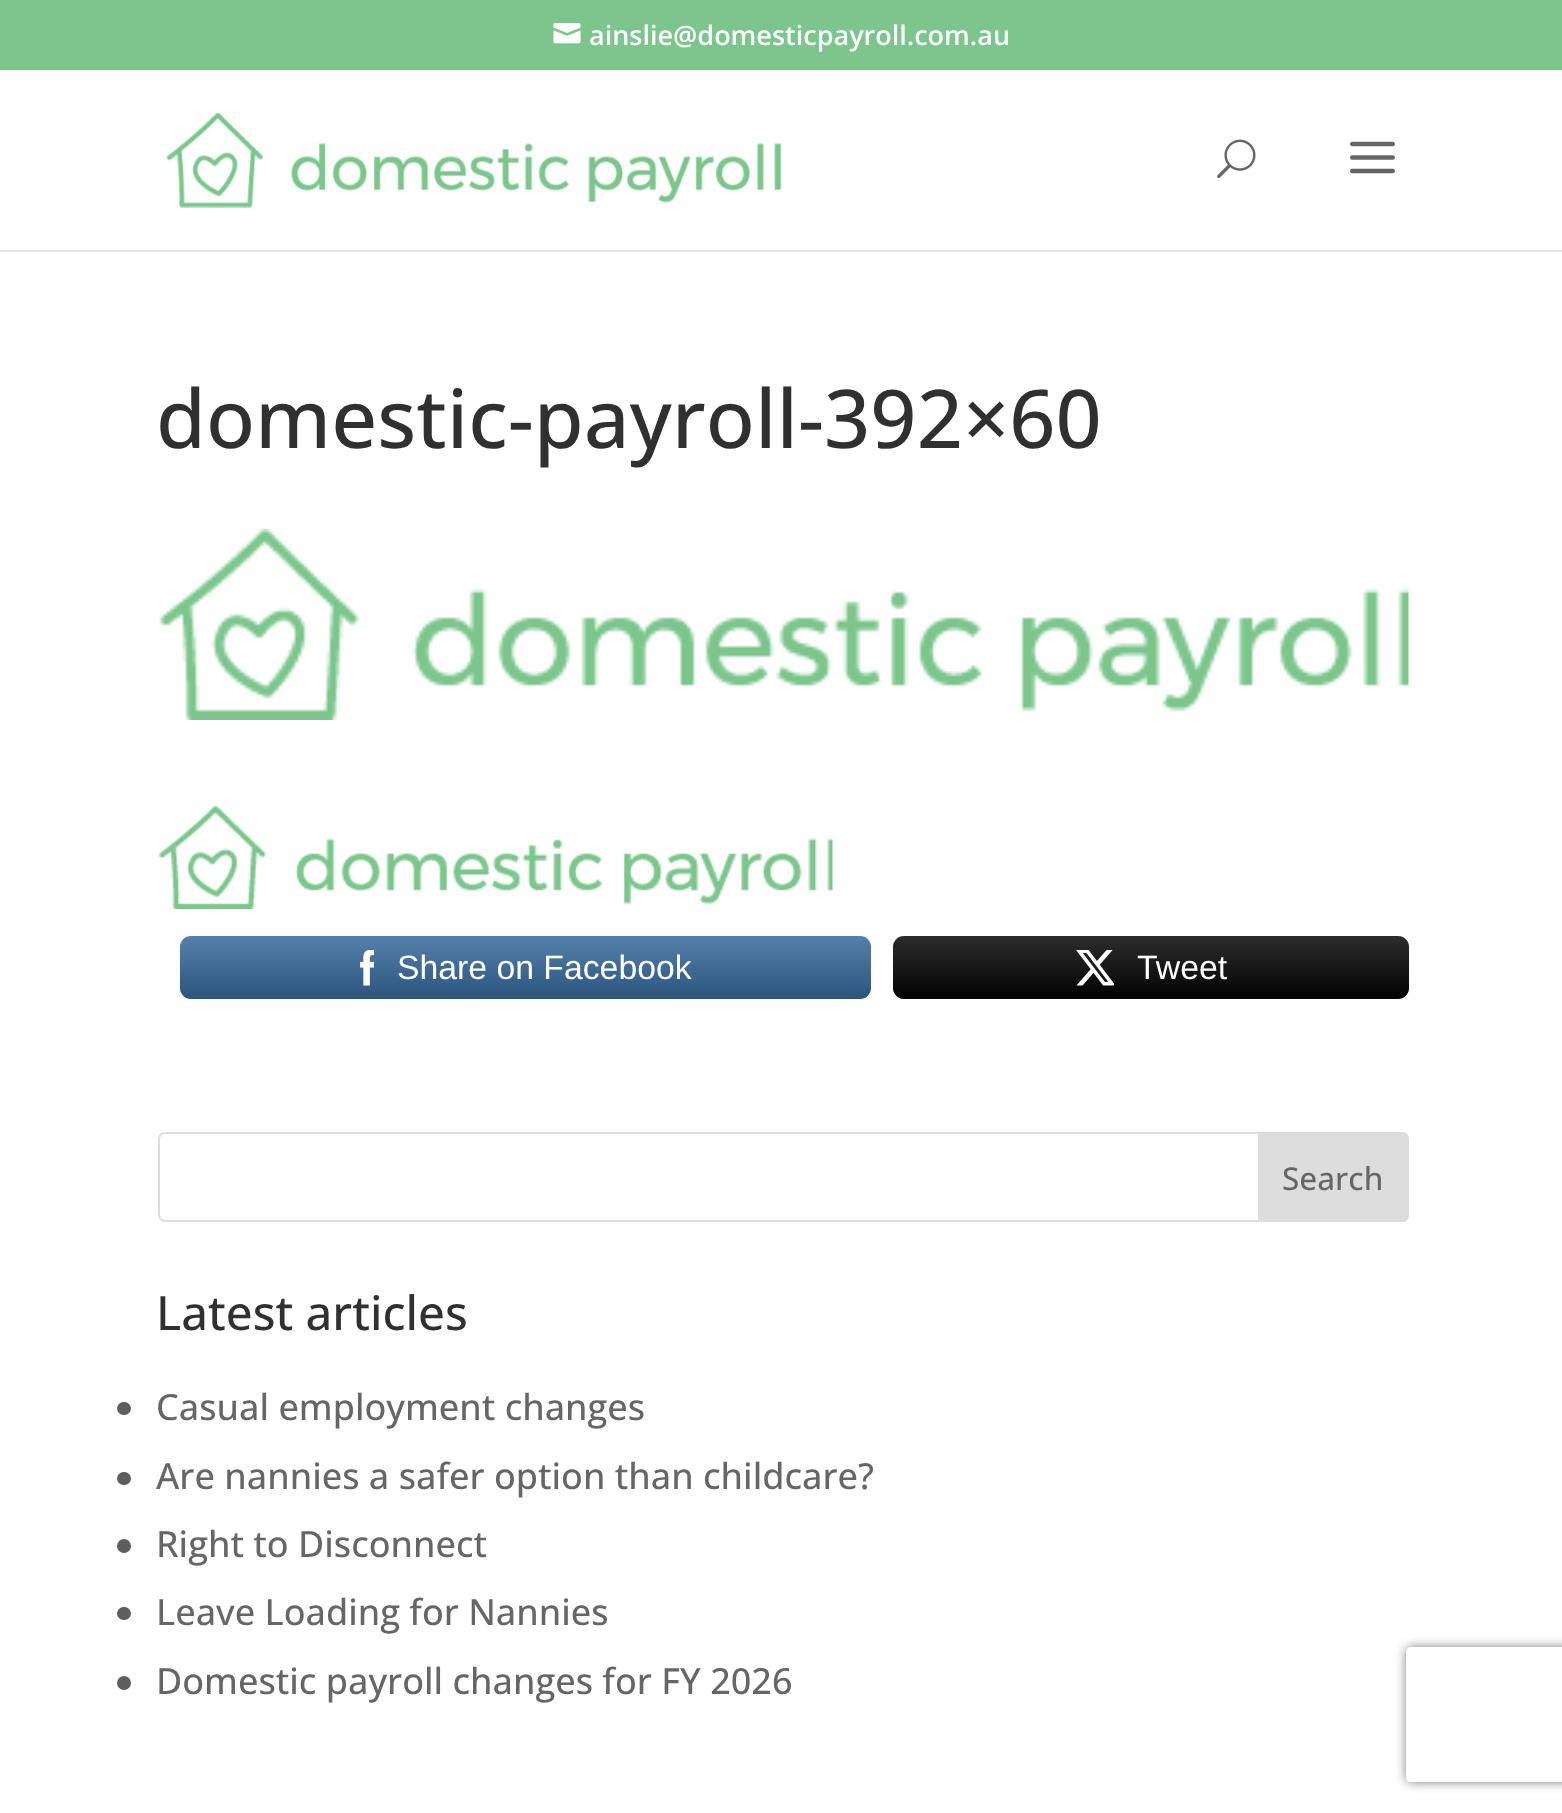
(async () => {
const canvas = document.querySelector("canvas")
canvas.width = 1562
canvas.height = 1813
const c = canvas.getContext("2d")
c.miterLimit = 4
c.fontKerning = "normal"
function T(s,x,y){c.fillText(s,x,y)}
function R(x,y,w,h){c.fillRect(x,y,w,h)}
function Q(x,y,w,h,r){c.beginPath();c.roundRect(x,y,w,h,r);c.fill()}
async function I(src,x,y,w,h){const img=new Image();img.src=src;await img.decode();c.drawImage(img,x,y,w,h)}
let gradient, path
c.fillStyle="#fff"
R(0,0,1562,1813)
c.fillStyle="#7cc68d"
R(0,0,1562,70)
await I("1.png",553,23,28,21)
c.font="600 27px Open Sans"
c.fillStyle="#fff"
T("ainslie@domesticpayroll.com.au",589,45)
c.fillStyle="#e6e6e6"
path = new Path2D("M0 250v2h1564v-180v178z")
c.fill(path)
await I("2.png",166,113,616,95)
await I("3.png",1217,139,39,39)
await I("4.png",1350,141,45,33)
c.font="500 81px Open Sans"
c.fillStyle="#303030"
T("domestic-payroll-392×60",156,448)
await I("5.png",159,528,1250,192)
await I("6.png",158,805,675,104)
c.fillStyle="#369"
Q(180,936,691,63,11)
gradient = c.createLinearGradient(525,999,525,936)
gradient.addColorStop(0,"#0000002b")
gradient.addColorStop(1,"#ffffff2b")
c.fillStyle = gradient
Q(180,936,691,63,11)
await I("7.png",360,950,14,36)
c.font="33.75px Liberation Sans"
c.fillStyle="#fff"
T("Share on Facebook",397,979)
c.fillStyle="#020202"
Q(893,936,516,63,11)
gradient = c.createLinearGradient(1151,999,1151,936)
gradient.addColorStop(0,"#0000002b")
gradient.addColorStop(1,"#ffffff2b")
c.fillStyle = gradient
Q(893,936,516,63,11)
await I("8.png",1076,950,38,36)
c.fillStyle="#fff"
T("Tweet",1137,979)
c.beginPath()
c.roundRect(159,1133,1249,88,6)
c.strokeStyle="#ddd"
c.lineWidth=2
c.stroke()
c.fillStyle="#ddd"
c.beginPath()
c.roundRect(1259,1133,149,88,[0,6,6,0])
c.fill()
c.stroke()
c.font="500 31.5px Open Sans"
c.fillStyle="#666"
T("Search",1282,1190)
c.font="500 47.25px Open Sans"
c.fillStyle="#303030"
T("Latest articles",156,1330)
c.fillStyle="#5e5e5e"
Q(117,1402,14,13,6.5)
c.font="500 36px Open Sans"
c.fillStyle="#666"
T("Casual employment changes",156,1420)
c.fillStyle="#5e5e5e"
Q(117,1472,14,13,6.5)
c.fillStyle="#666"
T("Are nannies a safer option than childcare?",156,1489)
c.fillStyle="#5e5e5e"
c.beginPath()
c.arc(124,1546,7,0,7)
c.fill()
c.fillStyle="#666"
T("Right to Disconnect",156,1557)
c.fillStyle="#5e5e5e"
Q(117,1607,14,13,6.5)
c.fillStyle="#666"
T("Leave Loading for Nannies",156,1625)
c.fillStyle="#5e5e5e"
c.beginPath()
c.arc(124,1683,7,0,7)
c.fill()
c.fillStyle="#666"
T("Domestic payroll changes for FY 2026",156,1694)
c.save()
path = new Path2D("M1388 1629h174v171h-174zm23 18h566c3 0 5 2 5 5v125c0 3-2 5-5 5h-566c-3 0-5-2-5-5v-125c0-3 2-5 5-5z")
c.clip(path,"evenodd")
c.fillStyle="#808080"
c.filter="blur(5.5px)"
c.beginPath()
c.roundRect(1406,1647,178,135,5)
c.fill()
c.filter="none"
c.restore()
})()
